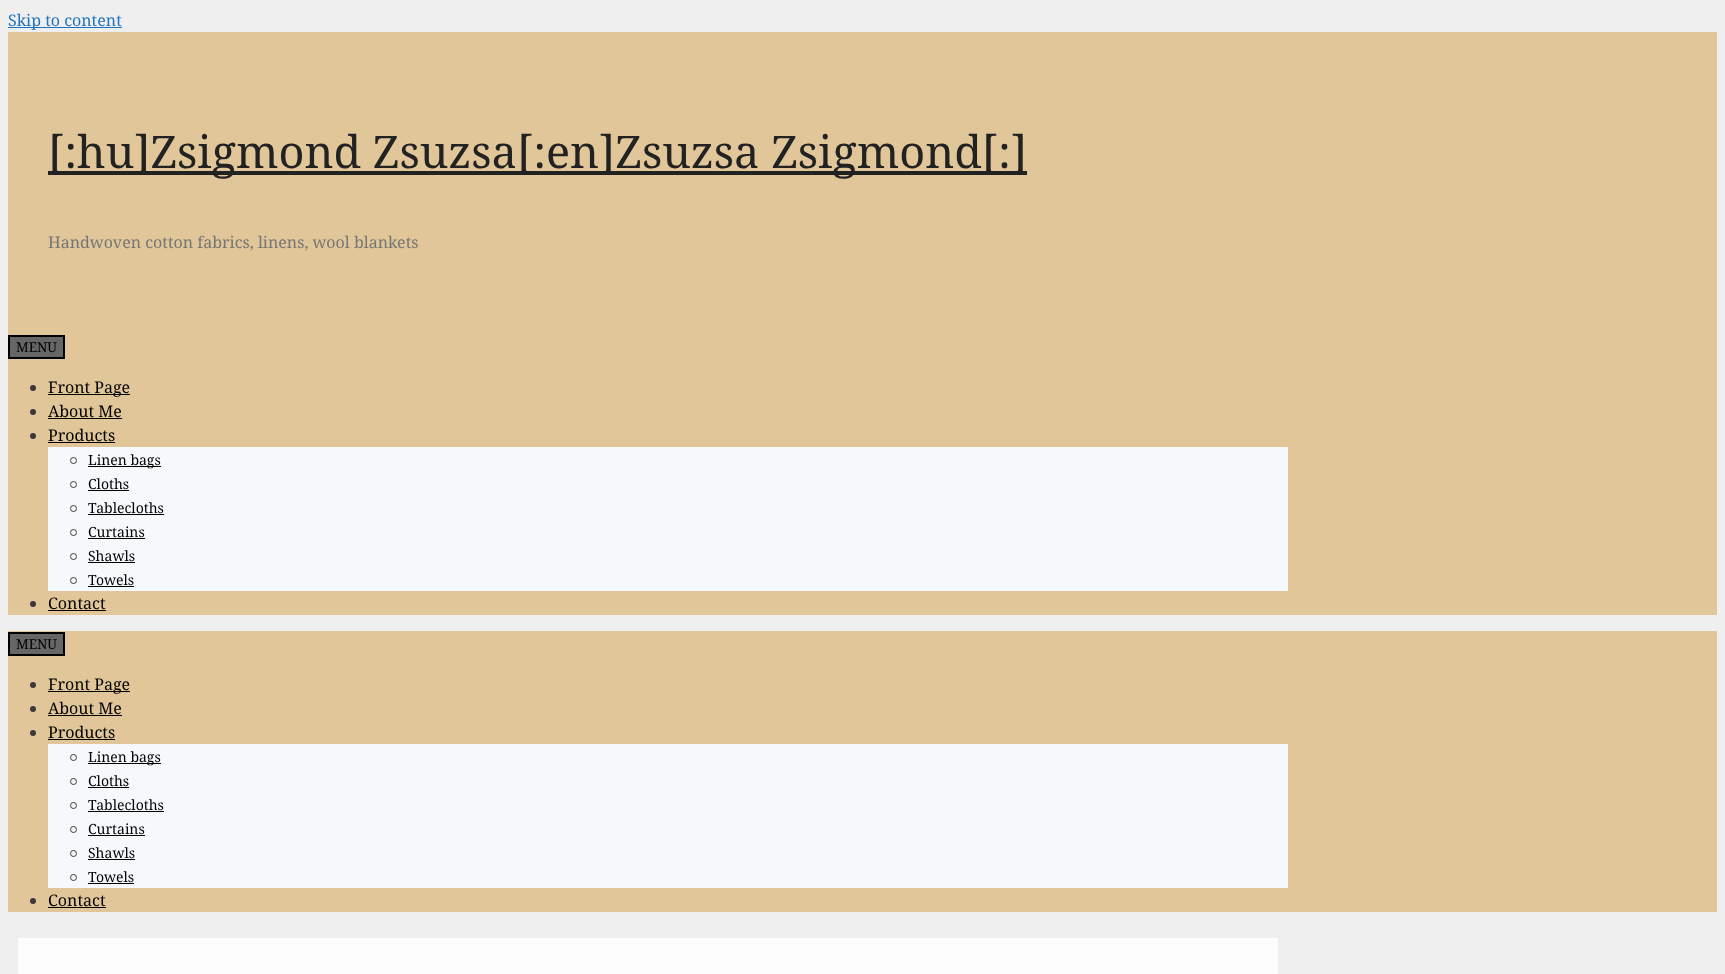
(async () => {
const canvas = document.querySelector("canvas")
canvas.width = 1725
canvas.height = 974
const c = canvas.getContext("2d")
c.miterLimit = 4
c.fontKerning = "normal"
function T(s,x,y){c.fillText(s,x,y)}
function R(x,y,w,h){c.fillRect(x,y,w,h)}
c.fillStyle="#efefef"
R(0,0,1725,974)
c.fillStyle="#1e73be"
R(8,27,114,1)
c.font="16px Noto Serif"
T("Skip to content",8,26)
c.fillStyle="#e0c699"
R(8,32,1709,583)
c.fillStyle="#222"
R(48,171,979,4)
c.font="45px Noto Serif"
T("[:hu]Zsigmond Zsuzsa[:en]Zsuzsa Zsigmond[:]",48,168)
c.font="16px Noto Serif"
c.fillStyle="#757575"
T("Handwoven cotton fabrics, linens, wool blankets",48,248)
c.fillStyle="#666"
c.beginPath()
c.rect(9,336,55,22)
c.fill()
c.strokeStyle="#000"
c.lineWidth=2
c.stroke()
c.font="13.5px Noto Serif"
c.fillStyle="#000"
T("MENU",16,352)
c.fillStyle="#3a3a3a"
c.beginPath()
c.arc(33,388,3,0,7)
c.fill()
c.fillStyle="#000"
R(48,394,82,1)
c.font="16px Noto Serif"
T("Front Page",48,393)
c.fillStyle="#3a3a3a"
c.beginPath()
c.arc(33,412,3,0,7)
c.fill()
c.fillStyle="#000"
T("About Me",48,417)
R(48,418,74,1)
c.fillStyle="#3a3a3a"
c.beginPath()
c.arc(33,436,3,0,7)
c.fill()
c.fillStyle="#000"
T("Products",48,441)
R(48,442,67,1)
c.fillStyle="#f6f9fc"
R(48,447,1240,144)
c.beginPath()
c.arc(73.5,460.5,3,0,7)
c.strokeStyle="#3a3a3a"
c.lineWidth=1
c.stroke()
c.fillStyle="#000"
R(88,466,73,1)
c.font="14px Noto Serif"
T("Linen bags",88,465)
c.beginPath()
c.arc(73.5,484.5,3,0,7)
c.stroke()
T("Cloths",88,489)
R(88,490,41,1)
c.beginPath()
c.arc(73.5,508.5,3,0,7)
c.stroke()
T("Tablecloths",88,513)
R(88,514,76,1)
c.beginPath()
c.arc(73.5,532.5,3,0,7)
c.stroke()
T("Curtains",88,537)
R(88,538,57,1)
c.beginPath()
c.arc(73.5,556.5,3,0,7)
c.stroke()
T("Shawls",88,561)
R(88,562,47,1)
c.beginPath()
c.arc(73.5,580.5,3,0,7)
c.stroke()
T("Towels",88,585)
R(88,586,46,1)
c.fillStyle="#3a3a3a"
c.beginPath()
c.arc(33,604,3,0,7)
c.fill()
c.font="16px Noto Serif"
c.fillStyle="#000"
T("Contact",48,609)
R(48,610,58,1)
c.fillStyle="#e0c699"
R(8,631,1709,281)
c.fillStyle="#666"
c.beginPath()
c.rect(9,633,55,22)
c.fill()
c.strokeStyle="#000"
c.lineWidth=2
c.stroke()
c.font="13.5px Noto Serif"
c.fillStyle="#000"
T("MENU",16,649)
c.fillStyle="#3a3a3a"
c.beginPath()
c.arc(33,685,3,0,7)
c.fill()
c.fillStyle="#000"
R(48,691,82,1)
c.font="16px Noto Serif"
T("Front Page",48,690)
c.fillStyle="#3a3a3a"
c.beginPath()
c.arc(33,709,3,0,7)
c.fill()
c.fillStyle="#000"
T("About Me",48,714)
R(48,715,74,1)
c.fillStyle="#3a3a3a"
c.beginPath()
c.arc(33,733,3,0,7)
c.fill()
c.fillStyle="#000"
T("Products",48,738)
R(48,739,67,1)
c.fillStyle="#f6f9fc"
R(48,744,1240,144)
c.beginPath()
c.arc(73.5,757.5,3,0,7)
c.strokeStyle="#3a3a3a"
c.lineWidth=1
c.stroke()
c.fillStyle="#000"
R(88,763,73,1)
c.font="14px Noto Serif"
T("Linen bags",88,762)
c.beginPath()
c.arc(73.5,781.5,3,0,7)
c.stroke()
T("Cloths",88,786)
R(88,787,41,1)
c.beginPath()
c.arc(73.5,805.5,3,0,7)
c.stroke()
T("Tablecloths",88,810)
R(88,811,76,1)
c.beginPath()
c.arc(73.5,829.5,3,0,7)
c.stroke()
T("Curtains",88,834)
R(88,835,57,1)
c.beginPath()
c.arc(73.5,853.5,3,0,7)
c.stroke()
T("Shawls",88,858)
R(88,859,47,1)
c.beginPath()
c.arc(73.5,877.5,3,0,7)
c.stroke()
T("Towels",88,882)
R(88,883,46,1)
c.fillStyle="#3a3a3a"
c.beginPath()
c.arc(33,901,3,0,7)
c.fill()
c.font="16px Noto Serif"
c.fillStyle="#000"
T("Contact",48,906)
R(48,907,58,1)
c.fillStyle="#fdfdfd"
R(18,938,1260,36)
})()
